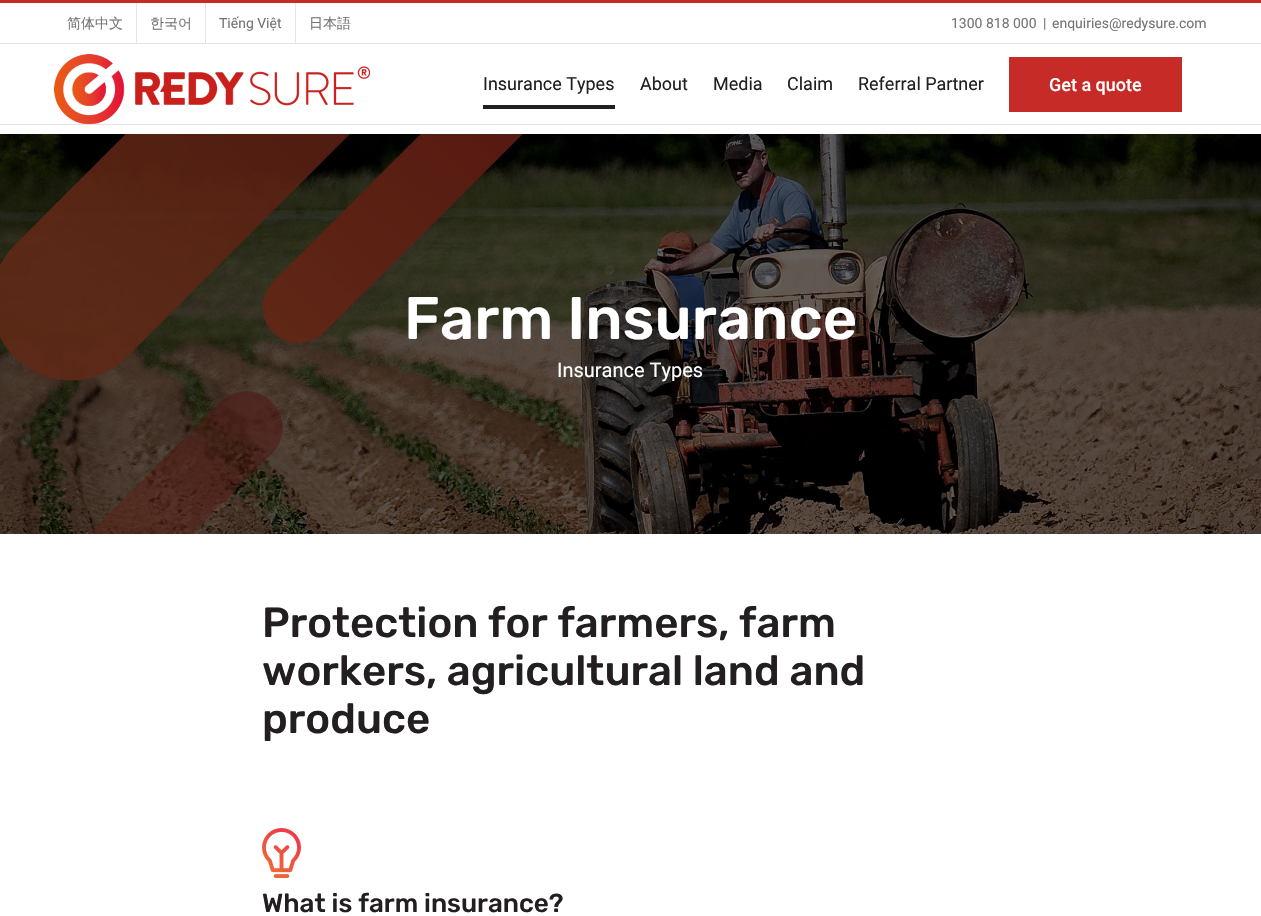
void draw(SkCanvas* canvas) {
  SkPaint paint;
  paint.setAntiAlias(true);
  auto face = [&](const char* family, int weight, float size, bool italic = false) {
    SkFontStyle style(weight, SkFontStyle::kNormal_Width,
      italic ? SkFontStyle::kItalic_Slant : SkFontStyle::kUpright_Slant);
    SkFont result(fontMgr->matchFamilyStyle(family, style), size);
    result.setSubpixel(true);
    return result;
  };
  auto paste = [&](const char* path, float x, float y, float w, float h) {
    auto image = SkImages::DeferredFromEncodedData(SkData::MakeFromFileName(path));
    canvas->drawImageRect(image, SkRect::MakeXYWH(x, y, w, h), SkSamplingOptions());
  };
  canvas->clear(0xffffffff);
  {
    const struct { float x, y, w, h; SkColor color; } items[] = {
      {0, 0, 1261, 3, 0xffc72b27},
      {0, 43, 1261, 1, 0xffe5e5e5},
      {136, 3, 1, 40, 0xffe5e5e5},
      {205, 3, 1, 40, 0xffe5e5e5},
      {295, 3, 1, 40, 0xffe5e5e5},
      {0, 124, 1261, 1, 0xffe5e5e5},
    };
    for (auto [x, y, w, h, color] : items) {
      paint.setColor(color);
      canvas->drawRect(SkRect::MakeXYWH(x, y, w, h), paint);
    }
  }
  paste("img/1.png", 54, 54, 316, 70);
  paint.setColor(0xff231f20);
  canvas->drawRect(SkRect::MakeXYWH(483, 105, 132, 4), paint);
  paint.setColor(0xffc72b27);
  canvas->drawRect(SkRect::MakeXYWH(1009, 57, 173, 55), paint);
  paste("img/2.png", 0, 134, 1261, 400);
  paste("img/3.png", 262, 828, 39, 50);
  auto f0 = face("WenQuanYi Zen Hei", 500, 14);
  paint.setColor(0xff747474);
  canvas->drawString("简体中文", 67, 28, f0, paint);
  canvas->drawString("한국어", 150, 28, f0, paint);
  auto f1 = face("Roboto", 400, 14);
  canvas->drawString("Tiếng Việt", 219, 28, f1, paint);
  canvas->drawString("日本語", 309, 28, f0, paint);
  {
    const struct { const char* s; float x, y; } items[] = {
      {"1300 818 000", 951, 28},
      {"|", 1043, 28},
      {"enquiries@redysure.com", 1052, 28},
    };
    for (auto [s, x, y] : items) {
      canvas->drawString(s, x, y, f1, paint);
    }
  }
  auto f2 = face("Roboto", 400, 18);
  paint.setColor(0xff231f20);
  {
    const struct { const char* s; float x, y; } items[] = {
      {"Insurance Types", 483, 90},
      {"About", 640, 90},
      {"Media", 713, 90},
      {"Claim", 787, 90},
      {"Referral Partner", 858, 90},
    };
    for (auto [s, x, y] : items) {
      canvas->drawString(s, x, y, f2, paint);
    }
  }
  auto f3 = face("Roboto", 500, 18);
  paint.setColor(0xffffffff);
  canvas->drawString("Get a quote", 1049, 91, f3, paint);
  auto f4 = face("Rubik", 300, 60);
  canvas->drawString("Farm Insurance", 404, 339, f4, paint);
  auto f5 = face("Roboto", 400, 20);
  canvas->drawString("Insurance Types", 557, 377, f5, paint);
  auto f6 = face("Rubik", 300, 42);
  paint.setColor(0xff231f20);
  {
    const struct { const char* s; float x, y; } items[] = {
      {"Protection for farmers, farm", 262, 637},
      {"workers, agricultural land and", 262, 685},
      {"produce", 262, 733},
    };
    for (auto [s, x, y] : items) {
      canvas->drawString(s, x, y, f6, paint);
    }
  }
  auto f7 = face("Rubik", 300, 26);
  canvas->drawString("What is farm insurance?", 262, 912, f7, paint);
}
